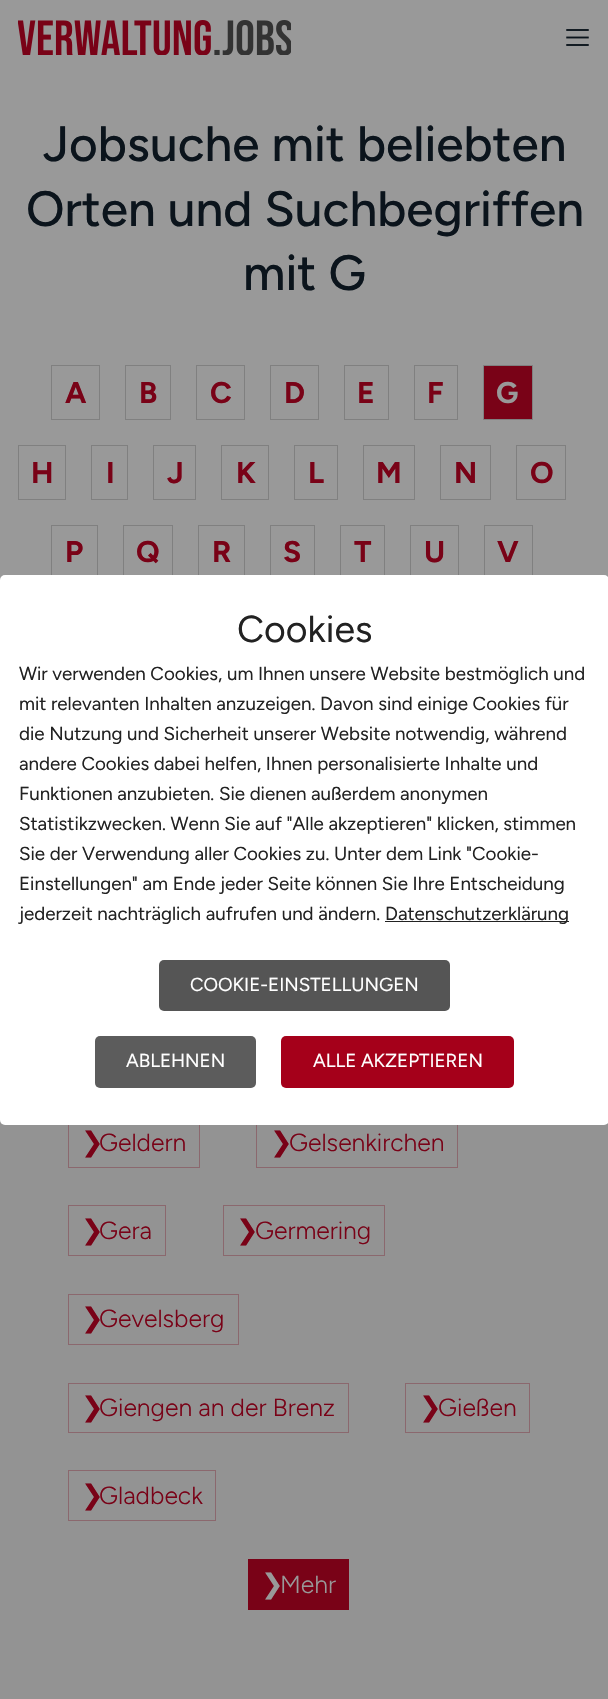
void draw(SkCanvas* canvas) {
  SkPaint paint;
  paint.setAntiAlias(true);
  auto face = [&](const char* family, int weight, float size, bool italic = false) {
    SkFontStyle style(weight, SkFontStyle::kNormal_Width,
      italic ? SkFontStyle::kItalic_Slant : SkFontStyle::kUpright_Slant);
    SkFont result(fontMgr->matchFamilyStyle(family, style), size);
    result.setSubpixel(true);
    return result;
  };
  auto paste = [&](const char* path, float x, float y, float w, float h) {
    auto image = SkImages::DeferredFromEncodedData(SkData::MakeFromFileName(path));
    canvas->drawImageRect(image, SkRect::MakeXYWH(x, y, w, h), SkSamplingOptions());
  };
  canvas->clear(0xff999999);
  paste("img/1.png", 18, 20, 273, 35);
  paste("img/2.png", 566, 29, 23, 17);
  paint.setStroke(true);
  paint.setStrokeWidth(1);
  paint.setColor(0xff808080);
  canvas->drawRect(SkRect::MakeXYWH(51.5f, 365.5f, 48, 54), paint);
  canvas->drawRect(SkRect::MakeXYWH(125.5f, 365.5f, 45, 54), paint);
  canvas->drawRect(SkRect::MakeXYWH(196.5f, 365.5f, 48, 54), paint);
  canvas->drawRect(SkRect::MakeXYWH(270.5f, 365.5f, 48, 54), paint);
  canvas->drawRect(SkRect::MakeXYWH(344.5f, 365.5f, 44, 54), paint);
  canvas->drawRect(SkRect::MakeXYWH(414.5f, 365.5f, 43, 54), paint);
  paint.setStroke(false);
  paint.setColor(0xff790217);
  canvas->drawRect(SkRect::MakeXYWH(483.5f, 365.5f, 49, 54), paint);
  paint.setStroke(true);
  paint.setColor(0xff808080);
  canvas->drawRect(SkRect::MakeXYWH(483.5f, 365.5f, 49, 54), paint);
  canvas->drawRect(SkRect::MakeXYWH(18.5f, 445.5f, 47, 54), paint);
  canvas->drawRect(SkRect::MakeXYWH(91.5f, 445.5f, 36, 54), paint);
  canvas->drawRect(SkRect::MakeXYWH(153.5f, 445.5f, 42, 54), paint);
  canvas->drawRect(SkRect::MakeXYWH(221.5f, 445.5f, 47, 54), paint);
  canvas->drawRect(SkRect::MakeXYWH(294.5f, 445.5f, 43, 54), paint);
  canvas->drawRect(SkRect::MakeXYWH(363.5f, 445.5f, 51, 54), paint);
  canvas->drawRect(SkRect::MakeXYWH(440.5f, 445.5f, 50, 54), paint);
  canvas->drawRect(SkRect::MakeXYWH(516.5f, 445.5f, 49, 54), paint);
  canvas->drawRect(SkRect::MakeXYWH(51.5f, 525.5f, 46, 54), paint);
  canvas->drawRect(SkRect::MakeXYWH(123.5f, 525.5f, 49, 54), paint);
  canvas->drawRect(SkRect::MakeXYWH(198.5f, 525.5f, 46, 54), paint);
  canvas->drawRect(SkRect::MakeXYWH(270.5f, 525.5f, 44, 54), paint);
  canvas->drawRect(SkRect::MakeXYWH(340.5f, 525.5f, 44, 54), paint);
  canvas->drawRect(SkRect::MakeXYWH(410.5f, 525.5f, 48, 54), paint);
  canvas->drawRect(SkRect::MakeXYWH(484.5f, 525.5f, 48, 54), paint);
  paint.setStroke(false);
  paint.setColor(0xff939393);
  canvas->drawRect(SkRect::MakeXYWH(0, 1120, 608, 579), paint);
  paint.setStroke(true);
  paint.setColor(0xff8b686e);
  canvas->drawRect(SkRect::MakeXYWH(68.5f, 1118.5f, 131, 49), paint);
  canvas->drawRect(SkRect::MakeXYWH(256.5f, 1118.5f, 201, 49), paint);
  canvas->drawRect(SkRect::MakeXYWH(68.5f, 1205.5f, 97, 50), paint);
  canvas->drawRect(SkRect::MakeXYWH(223.5f, 1205.5f, 161, 50), paint);
  canvas->drawRect(SkRect::MakeXYWH(68.5f, 1294.5f, 170, 50), paint);
  canvas->drawRect(SkRect::MakeXYWH(68.5f, 1383.5f, 280, 49), paint);
  canvas->drawRect(SkRect::MakeXYWH(405.5f, 1383.5f, 124, 49), paint);
  canvas->drawRect(SkRect::MakeXYWH(68.5f, 1470.5f, 147, 50), paint);
  paint.setStroke(false);
  paint.setColor(0xff790217);
  canvas->drawRect(SkRect::MakeXYWH(248, 1559, 101, 51), paint);
  paint.setColor(0xffffffff);
  canvas->drawRoundRect(SkRect::MakeXYWH(0, 575, 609, 550), 5, 5, paint);
  paint.setColor(0xff222222);
  canvas->drawRect(SkRect::MakeXYWH(385, 921, 184, 1), paint);
  paint.setColor(0xff555555);
  canvas->drawRoundRect(SkRect::MakeXYWH(159, 960, 291, 51), 5, 5, paint);
  paint.setColor(0xff5c5c5c);
  canvas->drawRoundRect(SkRect::MakeXYWH(95, 1036, 161, 52), 5, 5, paint);
  paint.setColor(0xffa5001a);
  canvas->drawRoundRect(SkRect::MakeXYWH(281, 1036, 233, 52), 5, 5, paint);
  auto f0 = face("Figtree", 500, 49.5f);
  paint.setColor(0xff0b141c);
  {
    const struct { const char* s; float x, y; } items[] = {
      {"Jobsuche mit beliebten", 43, 161},
      {"Orten und Suchbegriffen", 26, 226},
      {"mit G", 243, 290},
    };
    for (auto [s, x, y] : items) {
      canvas->drawString(s, x, y, f0, paint);
    }
  }
  auto f1 = face("Figtree", 700, 30);
  paint.setColor(0xff790217);
  {
    const struct { const char* s; float x, y; } items[] = {
      {"A", 65, 403},
      {"B", 139, 403},
      {"C", 210, 403},
      {"D", 284, 403},
      {"E", 357, 403},
      {"F", 427, 403},
    };
    for (auto [s, x, y] : items) {
      canvas->drawString(s, x, y, f1, paint);
    }
  }
  paint.setColor(0xff999999);
  canvas->drawString("G", 496, 403, f1, paint);
  paint.setColor(0xff790217);
  {
    const struct { const char* s; float x, y; } items[] = {
      {"H", 31, 483},
      {"I", 106, 483},
      {"J", 167, 483},
      {"K", 236, 483},
      {"L", 308, 483},
      {"M", 376, 483},
      {"N", 454, 483},
      {"O", 530, 483},
      {"P", 65, 562},
      {"Q", 136, 562},
      {"R", 212, 562},
      {"S", 283, 562},
      {"T", 354, 562},
      {"U", 424, 562},
      {"V", 497, 562},
    };
    for (auto [s, x, y] : items) {
      canvas->drawString(s, x, y, f1, paint);
    }
  }
  auto f2 = face("DejaVu Sans", 400, 27);
  canvas->drawString("❯", 81, 1151, f2, paint);
  auto f3 = face("Figtree", 300, 24.75f);
  canvas->drawString("Geldern", 99, 1151, f3, paint);
  canvas->drawString("❯", 270, 1151, f2, paint);
  canvas->drawString("Gelsenkirchen", 289, 1151, f3, paint);
  canvas->drawString("❯", 81, 1239, f2, paint);
  canvas->drawString("Gera", 99, 1239, f3, paint);
  canvas->drawString("❯", 236, 1239, f2, paint);
  canvas->drawString("Germering", 255, 1239, f3, paint);
  canvas->drawString("❯", 81, 1327, f2, paint);
  canvas->drawString("Gevelsberg", 99, 1327, f3, paint);
  canvas->drawString("❯", 81, 1416, f2, paint);
  canvas->drawString("Giengen an der Brenz", 99, 1416, f3, paint);
  canvas->drawString("❯", 419, 1416, f2, paint);
  canvas->drawString("Gießen", 438, 1416, f3, paint);
  canvas->drawString("❯", 81, 1504, f2, paint);
  canvas->drawString("Gladbeck", 99, 1504, f3, paint);
  paint.setColor(0xff999999);
  canvas->drawString("❯", 261, 1593, f2, paint);
  canvas->drawString("Mehr", 280, 1593, f3, paint);
  auto f4 = face("Figtree", 400, 37.5f);
  paint.setColor(0xff222222);
  canvas->drawString("Cookies", 237, 642, f4, paint);
  auto f5 = face("Figtree", 400, 18.75f);
  {
    const struct { const char* s; float x, y; } items[] = {
      {"Wir verwenden Cookies, um Ihnen unsere Website bestmöglich und", 19, 680},
      {"mit relevanten Inhalten anzuzeigen. Davon sind einige Cookies für", 19, 710},
      {"die Nutzung und Sicherheit unserer Website notwendig, während", 19, 740},
      {"andere Cookies dabei helfen, Ihnen personalisierte Inhalte und", 19, 770},
      {"Funktionen anzubieten. Sie dienen außerdem anonymen", 19, 800},
      {"Statistikzwecken. Wenn Sie auf \"Alle akzeptieren\" klicken, stimmen", 19, 830},
      {"Sie der Verwendung aller Cookies zu. Unter dem Link \"Cookie-", 19, 860},
      {"Einstellungen\" am Ende jeder Seite können Sie Ihre Entscheidung", 19, 890},
      {"jederzeit nachträglich aufrufen und ändern.", 19, 920},
      {"Datenschutzerklärung", 385, 920},
    };
    for (auto [s, x, y] : items) {
      canvas->drawString(s, x, y, f5, paint);
    }
  }
  paint.setColor(0xffffffff);
  {
    const struct { const char* s; float x, y; } items[] = {
      {"COOKIE-EINSTELLUNGEN", 190, 991},
      {"ABLEHNEN", 126, 1067},
      {"ALLE AKZEPTIEREN", 313, 1067},
    };
    for (auto [s, x, y] : items) {
      canvas->drawString(s, x, y, f5, paint);
    }
  }
}
